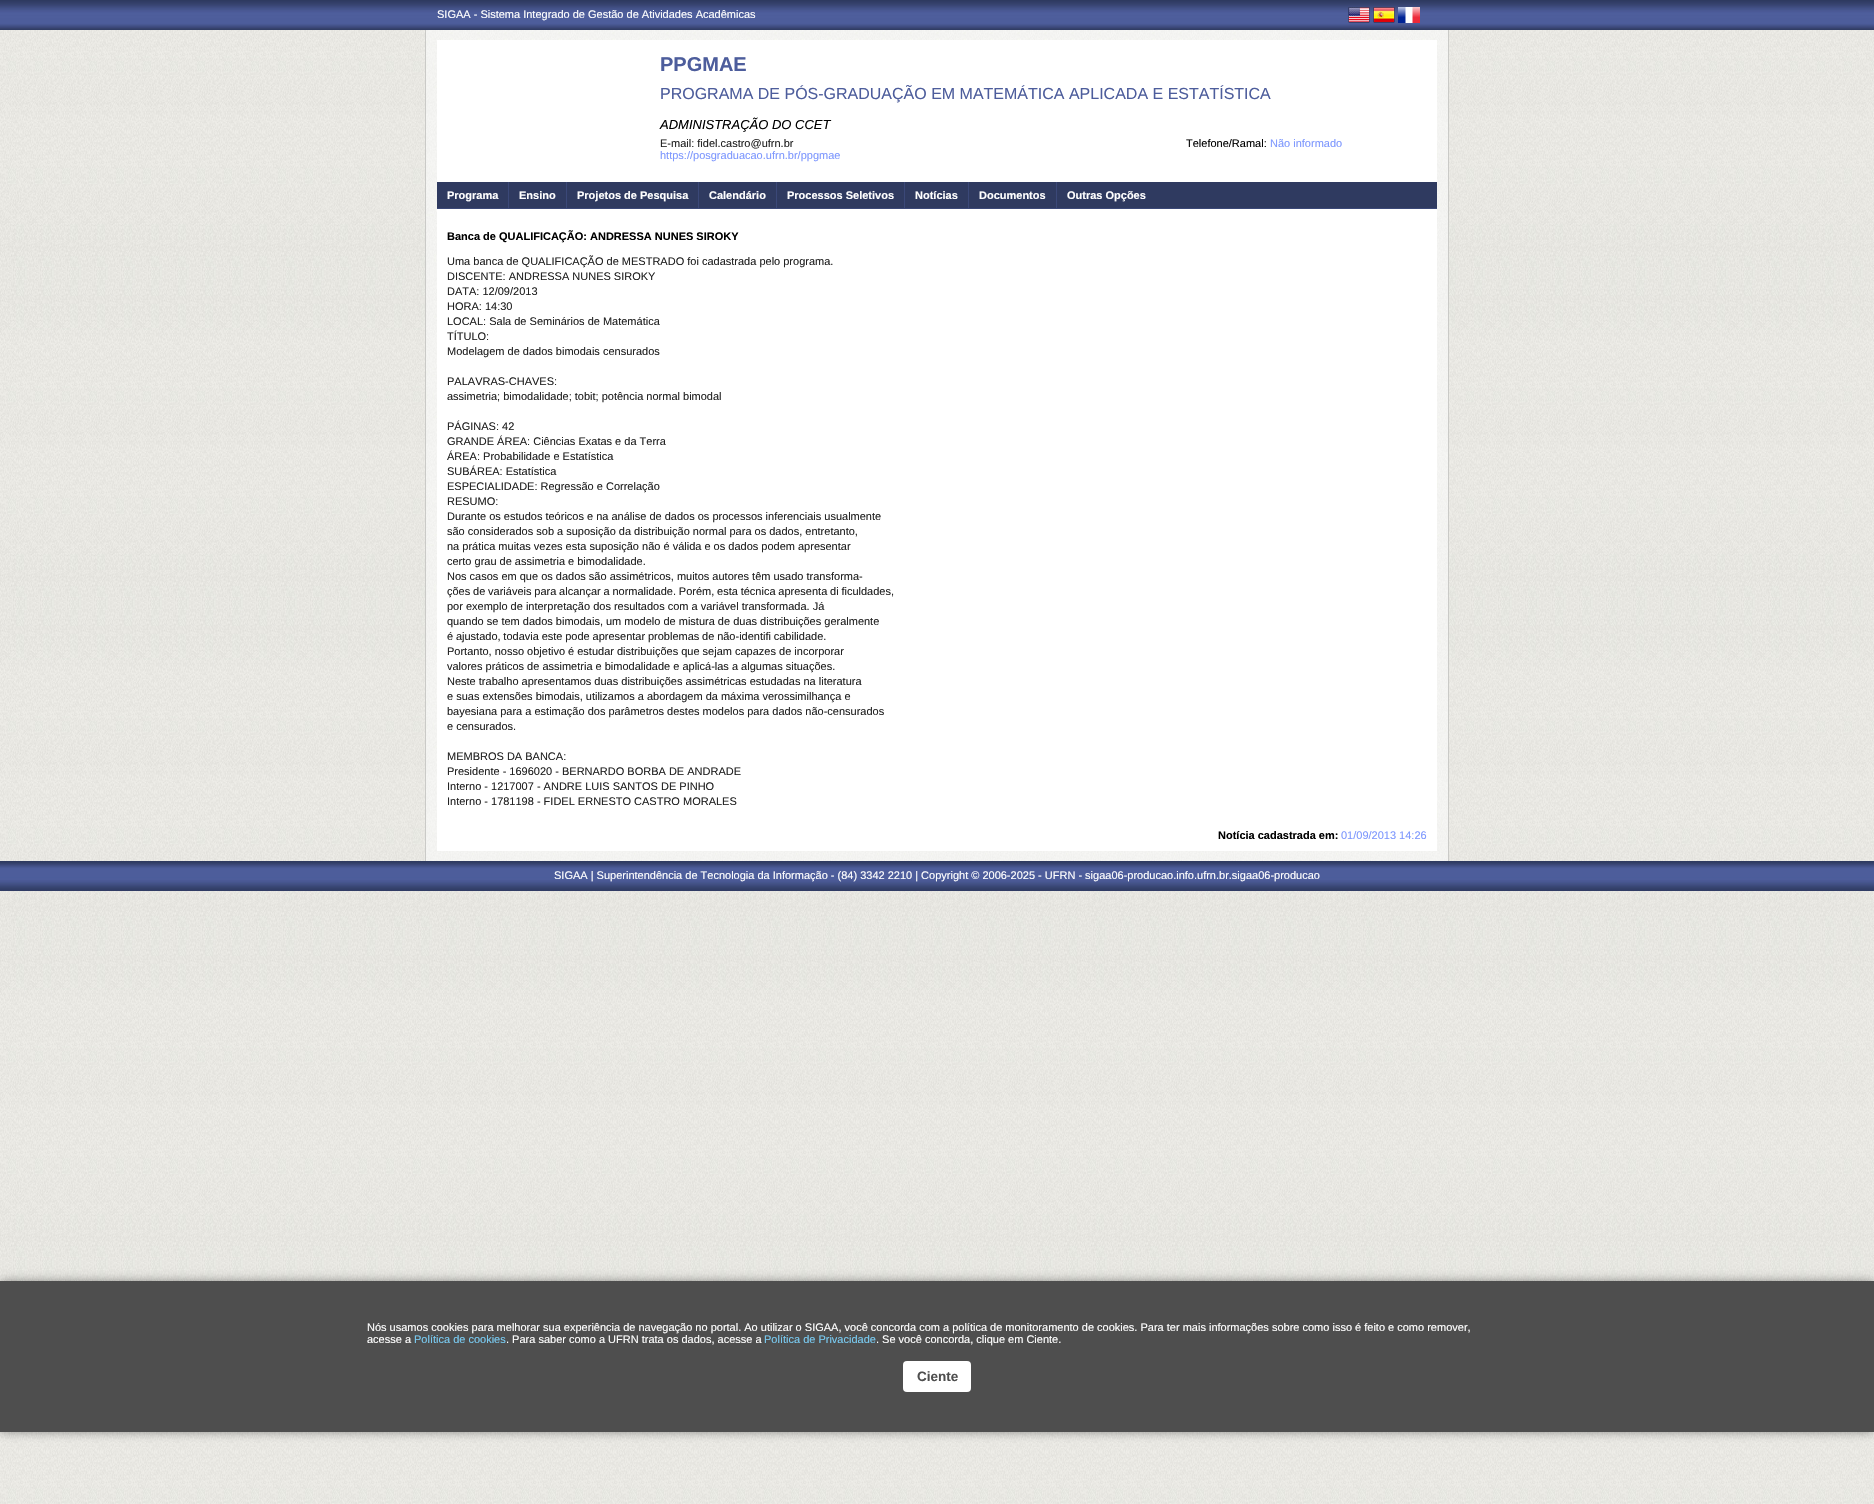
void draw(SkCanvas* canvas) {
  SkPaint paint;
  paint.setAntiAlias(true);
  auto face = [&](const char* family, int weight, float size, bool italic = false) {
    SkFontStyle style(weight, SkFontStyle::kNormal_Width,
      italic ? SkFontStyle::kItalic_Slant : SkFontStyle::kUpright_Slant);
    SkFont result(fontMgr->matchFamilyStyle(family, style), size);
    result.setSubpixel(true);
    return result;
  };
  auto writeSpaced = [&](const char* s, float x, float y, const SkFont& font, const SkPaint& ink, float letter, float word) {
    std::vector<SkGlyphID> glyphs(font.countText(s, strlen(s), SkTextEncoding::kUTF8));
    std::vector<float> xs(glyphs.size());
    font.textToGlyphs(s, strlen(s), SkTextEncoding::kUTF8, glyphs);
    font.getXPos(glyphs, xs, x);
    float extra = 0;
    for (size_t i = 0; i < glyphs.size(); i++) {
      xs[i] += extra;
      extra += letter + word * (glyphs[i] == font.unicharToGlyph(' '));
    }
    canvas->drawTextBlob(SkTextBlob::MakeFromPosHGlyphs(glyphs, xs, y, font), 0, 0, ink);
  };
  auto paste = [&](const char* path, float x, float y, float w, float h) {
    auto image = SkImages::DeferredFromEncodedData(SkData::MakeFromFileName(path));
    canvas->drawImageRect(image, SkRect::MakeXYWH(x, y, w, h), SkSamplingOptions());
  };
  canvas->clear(0xffffffff);
  paste("img/1.png", 0, 30, 1874, 1474);
  paste("img/2.png", 0, 0, 1874, 30);
  paste("img/3.png", 0, 861, 1874, 30);
  paste("img/4.png", 1348, 7, 22, 16);
  paste("img/5.png", 1373, 7, 22, 16);
  paste("img/6.png", 1398, 7, 22, 16);
  paste("img/7.png", 426, 30, 1022, 831);
  {
    const struct { float x, y, w, h; SkColor color; } items[] = {
      {1448, 30, 1, 831, 0xffcacac7},
      {425, 30, 1, 831, 0xffcacac7},
      {437, 40, 1000, 811, 0xffffffff},
      {437, 182, 1000, 26, 0xff2f3a60},
      {437, 208, 1000, 1, 0xff3b4878},
      {508, 182, 1, 27, 0xff3b4878},
      {566, 182, 1, 27, 0xff3b4878},
      {698, 182, 1, 27, 0xff3b4878},
      {776, 182, 1, 27, 0xff3b4878},
      {904, 182, 1, 27, 0xff3b4878},
      {968, 182, 1, 27, 0xff3b4878},
      {1056, 182, 1, 27, 0xff3b4878},
    };
    for (auto [x, y, w, h, color] : items) {
      paint.setColor(color);
      canvas->drawRect(SkRect::MakeXYWH(x, y, w, h), paint);
    }
  }
  paint.setColor(0x66000000);
  paint.setMaskFilter(SkMaskFilter::MakeBlur(kNormal_SkBlurStyle, 5));
  canvas->drawRect(SkRect::MakeXYWH(0, 1281, 1874, 151), paint);
  paint.setMaskFilter(nullptr);
  paint.setColor(0xff4e4e4e);
  canvas->drawRect(SkRect::MakeXYWH(0, 1281, 1874, 151), paint);
  paint.setColor(0xffffffff);
  canvas->drawRoundRect(SkRect::MakeXYWH(903, 1361, 68, 31), 4, 4, paint);
  auto f0 = face("Liberation Sans", 400, 11);
  canvas->drawString("SIGAA - Sistema Integrado de Gestão de Atividades Acadêmicas", 437, 18, f0, paint);
  auto f1 = face("Liberation Sans", 700, 20);
  paint.setColor(0xff4d5d9c);
  canvas->drawString("PPGMAE", 660, 71, f1, paint);
  auto f2 = face("Liberation Sans", 400, 16);
  canvas->drawString("PROGRAMA DE PÓS-GRADUAÇÃO EM MATEMÁTICA APLICADA E ESTATÍSTICA", 660, 99, f2, paint);
  auto f3 = face("Liberation Sans", 400, 13, true);
  paint.setColor(0xff000000);
  canvas->drawString("ADMINISTRAÇÃO DO CCET", 660, 129, f3, paint);
  paint.setColor(0xff222222);
  canvas->drawString("E-mail: fidel.castro@ufrn.br", 660, 147, f0, paint);
  paint.setColor(0xff000000);
  canvas->drawString("Telefone/Ramal:", 1186, 147, f0, paint);
  paint.setColor(0xff7d97fe);
  canvas->drawString("Não informado", 1270, 147, f0, paint);
  canvas->drawString("https://posgraduacao.ufrn.br/ppgmae", 660, 159, f0, paint);
  auto f4 = face("Liberation Sans", 700, 11);
  paint.setColor(0xffffffff);
  {
    const struct { const char* s; float x, y; } items[] = {
      {"Programa", 447, 199},
      {"Ensino", 519, 199},
      {"Projetos de Pesquisa", 577, 199},
      {"Calendário", 709, 199},
      {"Processos Seletivos", 787, 199},
      {"Notícias", 915, 199},
      {"Documentos", 979, 199},
      {"Outras Opções", 1067, 199},
    };
    for (auto [s, x, y] : items) {
      canvas->drawString(s, x, y, f4, paint);
    }
  }
  paint.setColor(0xff000000);
  canvas->drawString("Banca de QUALIFICAÇÃO: ANDRESSA NUNES SIROKY", 447, 240, f4, paint);
  paint.setColor(0xff222222);
  {
    const struct { const char* s; float x, y; } items[] = {
      {"Uma banca de QUALIFICAÇÃO de MESTRADO foi cadastrada pelo programa.", 447, 265},
      {"DISCENTE: ANDRESSA NUNES SIROKY", 447, 280},
      {"DATA: 12/09/2013", 447, 295},
      {"HORA: 14:30", 447, 310},
      {"LOCAL: Sala de Seminários de Matemática", 447, 325},
      {"TÍTULO:", 447, 340},
      {"Modelagem de dados bimodais censurados", 447, 355},
      {"PALAVRAS-CHAVES:", 447, 385},
      {"assimetria; bimodalidade; tobit; potência normal bimodal", 447, 400},
      {"PÁGINAS: 42", 447, 430},
      {"GRANDE ÁREA: Ciências Exatas e da Terra", 447, 445},
      {"ÁREA: Probabilidade e Estatística", 447, 460},
      {"SUBÁREA: Estatística", 447, 475},
      {"ESPECIALIDADE: Regressão e Correlação", 447, 490},
      {"RESUMO:", 447, 505},
      {"Durante os estudos teóricos e na análise de dados os processos inferenciais usualmente", 447, 520},
      {"são considerados sob a suposição da distribuição normal para os dados, entretanto,", 447, 535},
      {"na prática muitas vezes esta suposição não é válida e os dados podem apresentar", 447, 550},
      {"certo grau de assimetria e bimodalidade.", 447, 565},
      {"Nos casos em que os dados são assimétricos, muitos autores têm usado transforma-", 447, 580},
    };
    for (auto [s, x, y] : items) {
      canvas->drawString(s, x, y, f0, paint);
    }
  }
  writeSpaced("ções de variáveis para alcançar a normalidade. Porém, esta técnica apresenta di ficuldades,", 447, 595, f0, paint, 0, -0.25f);
  canvas->drawString("por exemplo de interpretação dos resultados com a variável transformada. Já", 447, 610, f0, paint);
  canvas->drawString("quando se tem dados bimodais, um modelo de mistura de duas distribuições geralmente", 447, 625, f0, paint);
  writeSpaced("é ajustado, todavia este pode apresentar problemas de não-identifi cabilidade.", 447, 640, f0, paint, 0, -0.25f);
  {
    const struct { const char* s; float x, y; } items[] = {
      {"Portanto, nosso objetivo é estudar distribuições que sejam capazes de incorporar", 447, 655},
      {"valores práticos de assimetria e bimodalidade e aplicá-las a algumas situações.", 447, 670},
      {"Neste trabalho apresentamos duas distribuições assimétricas estudadas na literatura", 447, 685},
      {"e suas extensões bimodais, utilizamos a abordagem da máxima verossimilhança e", 447, 700},
      {"bayesiana para a estimação dos parâmetros destes modelos para dados não-censurados", 447, 715},
      {"e censurados.", 447, 730},
      {"MEMBROS DA BANCA:", 447, 760},
      {"Presidente - 1696020 - BERNARDO BORBA DE ANDRADE", 447, 775},
      {"Interno - 1217007 - ANDRE LUIS SANTOS DE PINHO", 447, 790},
      {"Interno - 1781198 - FIDEL ERNESTO CASTRO MORALES", 447, 805},
    };
    for (auto [s, x, y] : items) {
      canvas->drawString(s, x, y, f0, paint);
    }
  }
  paint.setColor(0xff000000);
  canvas->drawString("Notícia cadastrada em:", 1218, 839, f4, paint);
  paint.setColor(0xff7d97fe);
  canvas->drawString("01/09/2013 14:26", 1341, 839, f0, paint);
  paint.setColor(0xffffffff);
  {
    const struct { const char* s; float x, y; } items[] = {
      {"SIGAA | Superintendência de Tecnologia da Informação - (84) 3342 2210 | Copyright © 2006-2025 - UFRN - sigaa06-producao.info.ufrn.br.sigaa06-producao", 554, 879},
      {"Nós usamos cookies para melhorar sua experiência de navegação no portal. Ao utilizar o SIGAA, você concorda com a política de monitoramento de cookies. Para ter mais informações sobre como isso é feito e como remover,", 367, 1331},
      {"acesse a", 367, 1343},
    };
    for (auto [s, x, y] : items) {
      canvas->drawString(s, x, y, f0, paint);
    }
  }
  paint.setColor(0xff79cbf2);
  canvas->drawString("Política de cookies", 414, 1343, f0, paint);
  paint.setColor(0xffffffff);
  canvas->drawString(". Para saber como a UFRN trata os dados, acesse a", 506, 1343, f0, paint);
  paint.setColor(0xff79cbf2);
  canvas->drawString("Política de Privacidade", 764, 1343, f0, paint);
  paint.setColor(0xffffffff);
  canvas->drawString(". Se você concorda, clique em Ciente.", 876, 1343, f0, paint);
  auto f5 = face("Liberation Sans", 700, 13.5f);
  paint.setColor(0xff4e4e4e);
  canvas->drawString("Ciente", 917, 1381, f5, paint);
}
